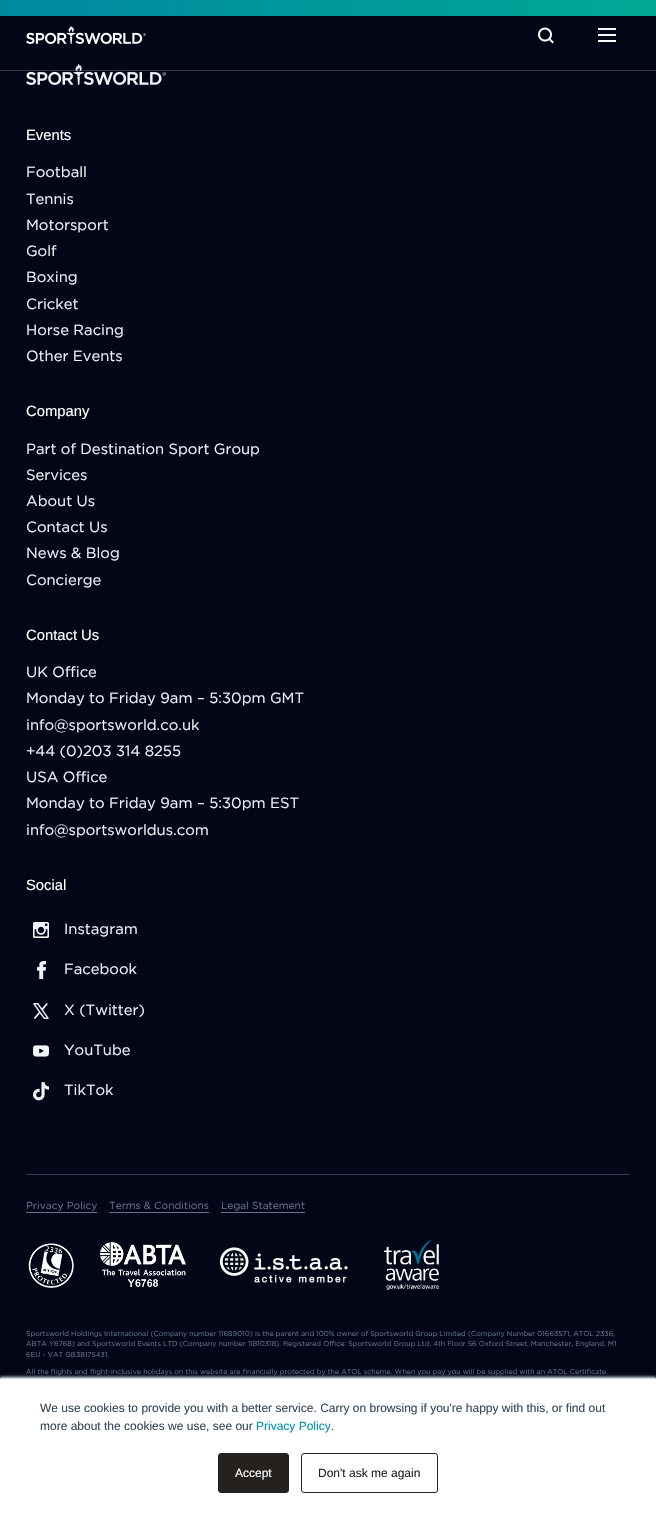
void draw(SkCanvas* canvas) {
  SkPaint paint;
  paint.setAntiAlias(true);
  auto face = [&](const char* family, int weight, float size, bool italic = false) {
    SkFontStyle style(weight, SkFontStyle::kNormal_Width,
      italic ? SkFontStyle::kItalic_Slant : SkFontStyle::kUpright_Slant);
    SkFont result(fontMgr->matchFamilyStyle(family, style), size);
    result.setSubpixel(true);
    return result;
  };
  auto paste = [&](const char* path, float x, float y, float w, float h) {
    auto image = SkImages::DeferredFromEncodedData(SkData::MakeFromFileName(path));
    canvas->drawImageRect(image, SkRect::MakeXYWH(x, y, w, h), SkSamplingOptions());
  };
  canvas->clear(0xff020617);
  paste("img/3.png", 26, 64, 140, 21);
  paint.setColor(0x33ffffff);
  canvas->drawRect(SkRect::MakeXYWH(0, 70, 656, 1), paint);
  paste("img/1.png", 26, 26, 120, 18);
  paste("img/2.png", 538, 27, 16, 17);
  {
    const struct { float x, y, w, h; SkColor color; } items[] = {
      {598, 34, 18, 2, 0xffffffff},
      {598, 28, 18, 2, 0xffffffff},
      {598, 40, 18, 2, 0xffffffff},
    };
    for (auto [x, y, w, h, color] : items) {
      paint.setColor(color);
      canvas->drawRect(SkRect::MakeXYWH(x, y, w, h), paint);
    }
  }
  {
    const SkColor colors[] = {0xff00a995, 0xff0088a1};
    const float stops[] = {0, 1};
    const SkPoint ends[] = {{656, 8}, {0, 8}};
    paint.setShader(SkGradientShader::MakeLinear(ends, colors, stops, 2, SkTileMode::kClamp));
    paint.setAlpha(255);
  }
  canvas->drawRect(SkRect::MakeXYWH(0, 0, 656, 16), paint);
  paste("img/4.png", 33, 922, 16, 16);
  paste("img/5.png", 37, 961, 9, 18);
  paste("img/6.png", 33, 1003, 16, 16);
  paste("img/7.png", 33, 1045, 16, 12);
  paste("img/8.png", 33, 1082, 16, 19);
  paint.setShader(nullptr);
  {
    const struct { float x, y, w, h; SkColor color; } items[] = {
      {26, 1174, 604, 1, 0xff334155},
      {26, 1212, 71, 1, 0xff64748b},
      {109, 1212, 100, 1, 0xff64748b},
      {221, 1212, 84, 1, 0xff64748b},
    };
    for (auto [x, y, w, h, color] : items) {
      paint.setColor(color);
      canvas->drawRect(SkRect::MakeXYWH(x, y, w, h), paint);
    }
  }
  paste("img/9.png", 28, 1243, 46, 45);
  paste("img/10.png", 100, 1242, 86, 45);
  paste("img/11.png", 219, 1247, 129, 36);
  paste("img/12.png", 384, 1240, 55, 50);
  paint.setColor(0xffeaf0f6);
  paint.setMaskFilter(SkMaskFilter::MakeBlur(kNormal_SkBlurStyle, 1.5f));
  canvas->drawRect(SkRect::MakeXYWH(0, 1377, 656, 141), paint);
  paint.setMaskFilter(nullptr);
  paint.setColor(0xffffffff);
  canvas->drawRect(SkRect::MakeXYWH(0, 1379, 656, 140), paint);
  paint.setColor(0xffcbd6e2);
  canvas->drawRect(SkRect::MakeXYWH(0, 1378, 656, 1), paint);
  paint.setColor(0xff25211e);
  canvas->drawRoundRect(SkRect::MakeXYWH(218.5f, 1453.5f, 70, 39), 2.5f, 2.5f, paint);
  paint.setStroke(true);
  paint.setStrokeWidth(1);
  canvas->drawRoundRect(SkRect::MakeXYWH(218.5f, 1453.5f, 70, 39), 2.5f, 2.5f, paint);
  canvas->drawRoundRect(SkRect::MakeXYWH(301.5f, 1453.5f, 136, 39), 2.5f, 2.5f, paint);
  auto f0 = face("Liberation Sans", 400, 14.8f);
  paint.setStroke(false);
  paint.setColor(0xffffffff);
  canvas->drawString("Events", 26, 140, f0, paint);
  auto f1 = face("Gotham", 400, 14.8f);
  paint.setColor(0xfff1f5f9);
  {
    const struct { const char* s; float x, y; } items[] = {
      {"Football", 26, 177},
      {"Tennis", 26, 204},
      {"Motorsport", 26, 230},
      {"Golf", 26, 256},
      {"Boxing", 26, 282},
      {"Cricket", 26, 309},
      {"Horse Racing", 26, 335},
      {"Other Events", 26, 361},
    };
    for (auto [s, x, y] : items) {
      canvas->drawString(s, x, y, f1, paint);
    }
  }
  paint.setColor(0xffffffff);
  canvas->drawString("Company", 26, 416, f0, paint);
  paint.setColor(0xfff1f5f9);
  {
    const struct { const char* s; float x, y; } items[] = {
      {"Part of Destination Sport Group", 26, 454},
      {"Services", 26, 480},
      {"About Us", 26, 506},
      {"Contact Us", 26, 532},
      {"News & Blog", 26, 558},
      {"Concierge", 26, 585},
    };
    for (auto [s, x, y] : items) {
      canvas->drawString(s, x, y, f1, paint);
    }
  }
  paint.setColor(0xffffffff);
  canvas->drawString("Contact Us", 26, 640, f0, paint);
  paint.setColor(0xfff1f5f9);
  {
    const struct { const char* s; float x, y; } items[] = {
      {"UK Office", 26, 677},
      {"Monday to Friday 9am – 5:30pm GMT", 26, 703},
      {"info@sportsworld.co.uk", 26, 730},
      {"+44 (0)203 314 8255", 26, 756},
      {"USA Office", 26, 782},
      {"Monday to Friday 9am – 5:30pm EST", 26, 808},
      {"info@sportsworldus.com", 26, 835},
    };
    for (auto [s, x, y] : items) {
      canvas->drawString(s, x, y, f1, paint);
    }
  }
  paint.setColor(0xffffffff);
  canvas->drawString("Social", 26, 890, f0, paint);
  paint.setColor(0xfff1f5f9);
  {
    const struct { const char* s; float x, y; } items[] = {
      {"Instagram", 64, 934},
      {"Facebook", 64, 974},
      {"X (Twitter)", 64, 1015},
      {"YouTube", 64, 1055},
      {"TikTok", 64, 1095},
    };
    for (auto [s, x, y] : items) {
      canvas->drawString(s, x, y, f1, paint);
    }
  }
  auto f2 = face("Gotham", 400, 10.25f);
  paint.setColor(0xff64748b);
  {
    const struct { const char* s; float x, y; } items[] = {
      {"Privacy Policy", 26, 1209},
      {"Terms & Conditions", 109, 1209},
      {"Legal Statement", 221, 1209},
    };
    for (auto [s, x, y] : items) {
      canvas->drawString(s, x, y, f2, paint);
    }
  }
  auto f3 = face("Gotham", 400, 7.05f);
  {
    const struct { const char* s; float x, y; } items[] = {
      {"Sportsworld Holdings International (Company number 11689010) is the parent and 100% owner of Sportsworld Group Limited (Company Number 01663571, ATOL 2336,", 26, 1336},
      {"ABTA Y6768) and Sportsworld Events LTD (Company number 11810318). Registered Office: Sportsworld Group Ltd, 4th Floor 56 Oxford Street, Manchester, England, M1", 26, 1346},
      {"6EU - VAT GB38175431.", 26, 1357},
      {"All the flights and flight-inclusive holidays on this website are financially protected by the ATOL scheme. When you pay you will be supplied with an ATOL Certificate.", 26, 1374},
    };
    for (auto [s, x, y] : items) {
      canvas->drawString(s, x, y, f3, paint);
    }
  }
  auto f4 = face("Liberation Sans", 400, 12);
  paint.setColor(0xff33475b);
  canvas->drawString("We use cookies to provide you with a better service. Carry on browsing if you're happy with this, or find out", 40, 1412, f4, paint);
  canvas->drawString("more about the cookies we use, see our", 40, 1430, f4, paint);
  paint.setColor(0xff0091ae);
  canvas->drawString("Privacy Policy", 256, 1430, f4, paint);
  paint.setColor(0xff33475b);
  canvas->drawString(".", 331, 1430, f4, paint);
  paint.setColor(0xffffffff);
  canvas->drawString("Accept", 235, 1477, f4, paint);
  paint.setColor(0xff25211e);
  canvas->drawString("Don't ask me again", 318, 1477, f4, paint);
}
